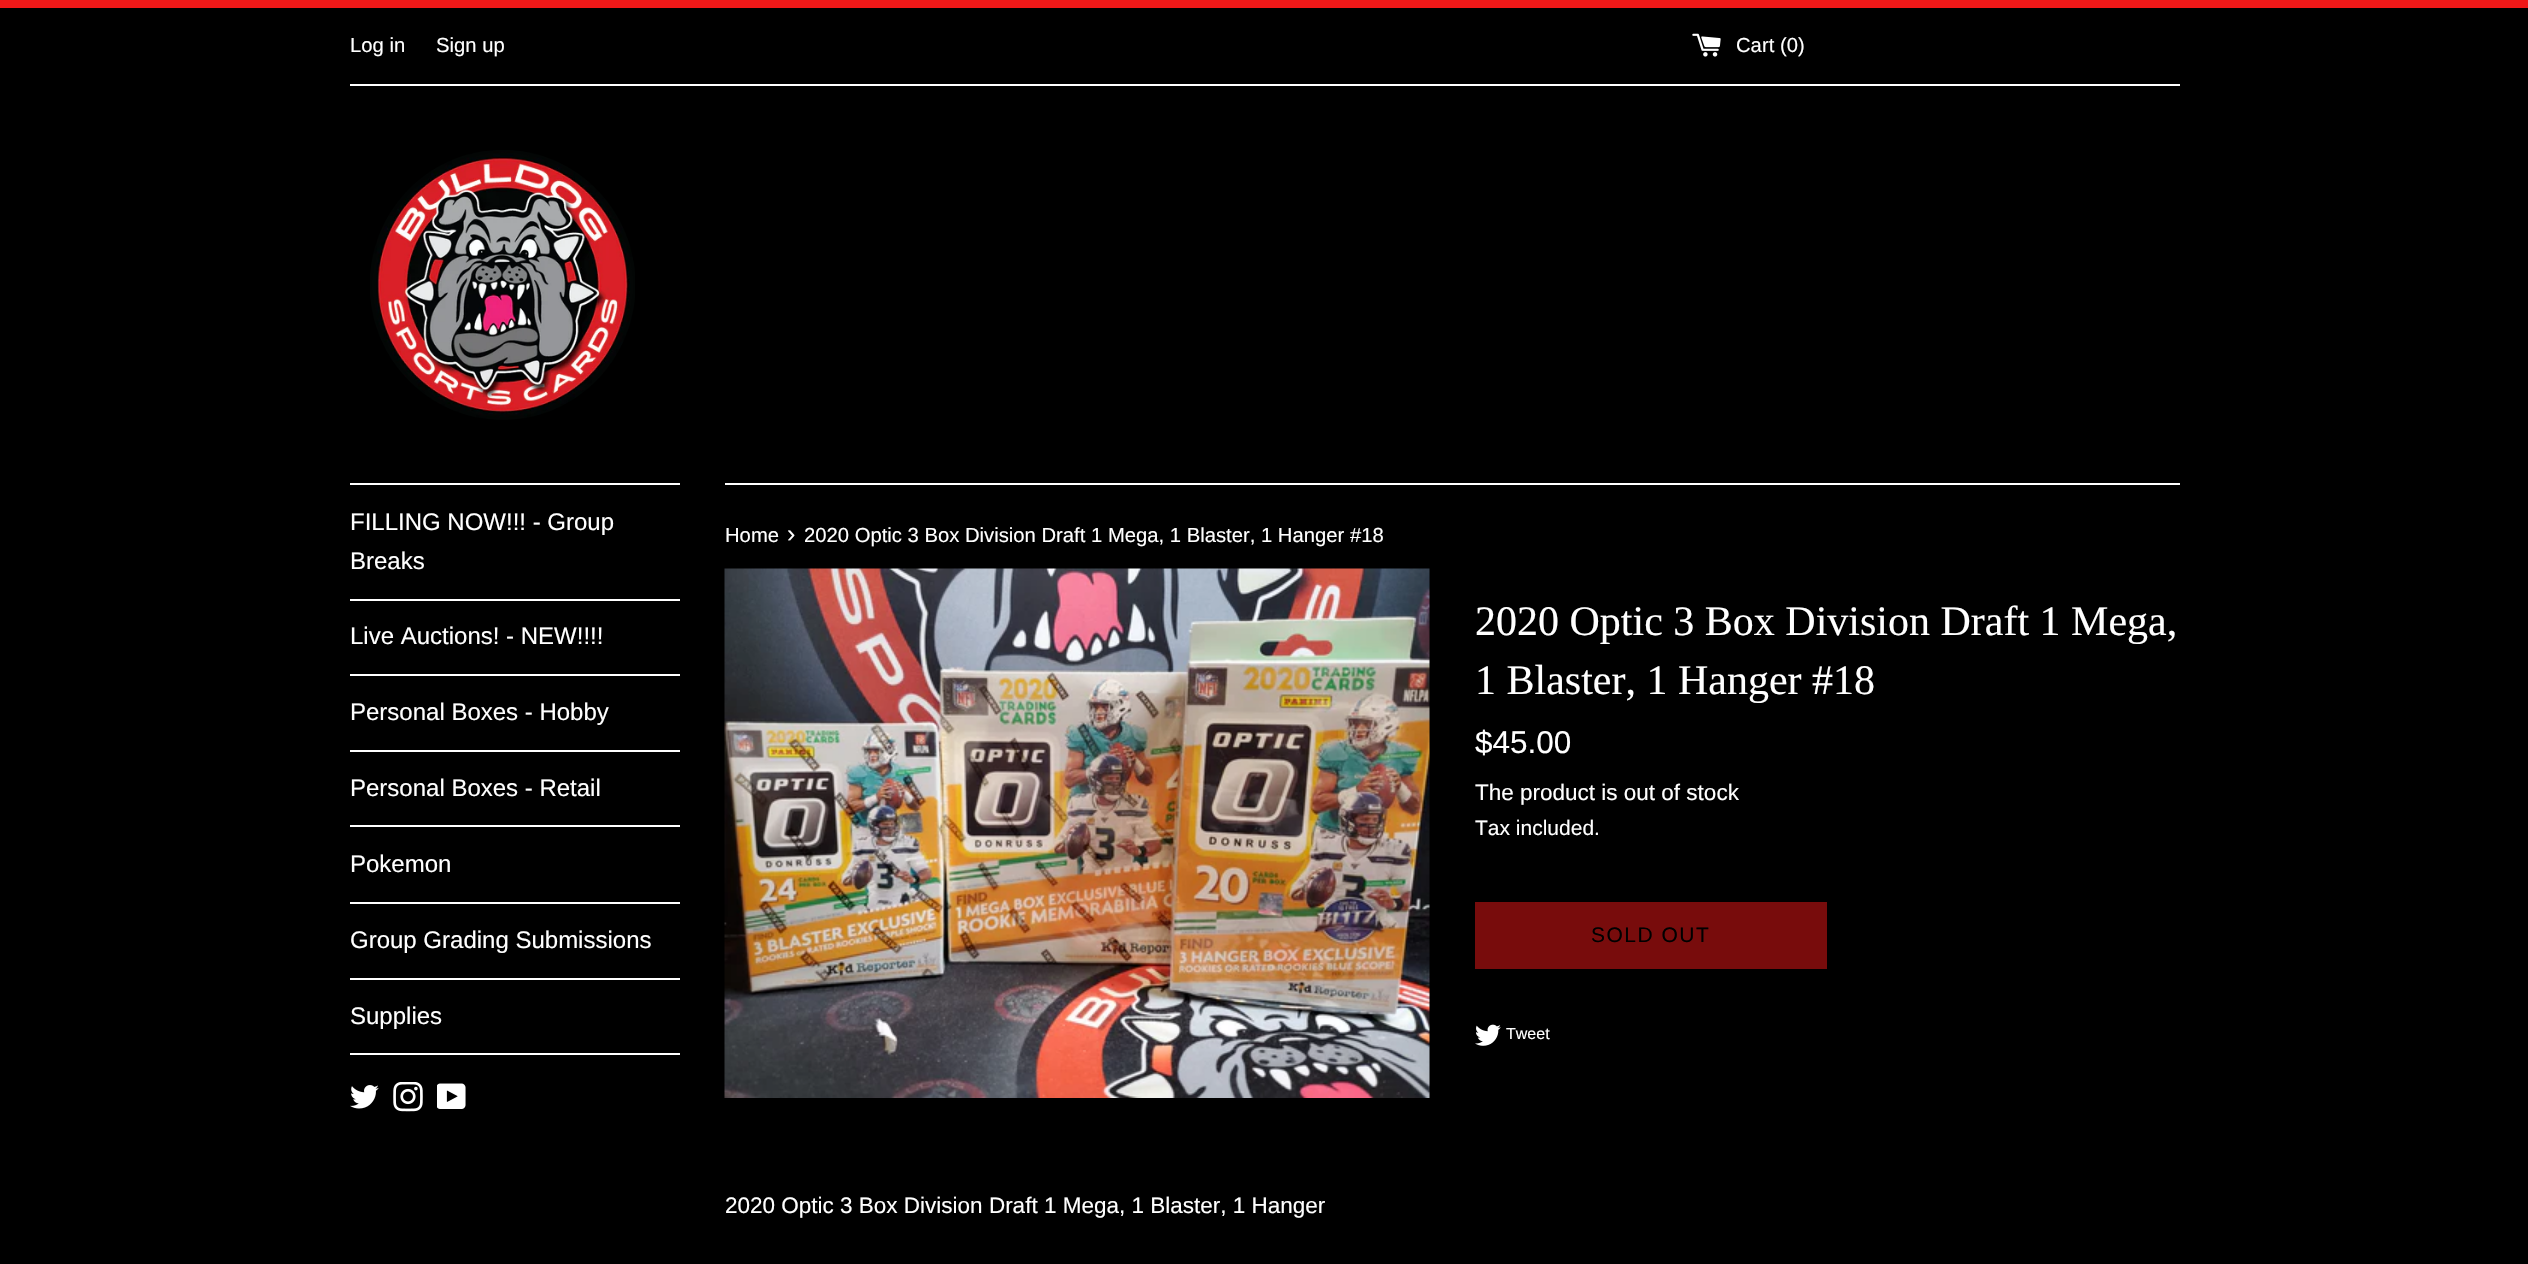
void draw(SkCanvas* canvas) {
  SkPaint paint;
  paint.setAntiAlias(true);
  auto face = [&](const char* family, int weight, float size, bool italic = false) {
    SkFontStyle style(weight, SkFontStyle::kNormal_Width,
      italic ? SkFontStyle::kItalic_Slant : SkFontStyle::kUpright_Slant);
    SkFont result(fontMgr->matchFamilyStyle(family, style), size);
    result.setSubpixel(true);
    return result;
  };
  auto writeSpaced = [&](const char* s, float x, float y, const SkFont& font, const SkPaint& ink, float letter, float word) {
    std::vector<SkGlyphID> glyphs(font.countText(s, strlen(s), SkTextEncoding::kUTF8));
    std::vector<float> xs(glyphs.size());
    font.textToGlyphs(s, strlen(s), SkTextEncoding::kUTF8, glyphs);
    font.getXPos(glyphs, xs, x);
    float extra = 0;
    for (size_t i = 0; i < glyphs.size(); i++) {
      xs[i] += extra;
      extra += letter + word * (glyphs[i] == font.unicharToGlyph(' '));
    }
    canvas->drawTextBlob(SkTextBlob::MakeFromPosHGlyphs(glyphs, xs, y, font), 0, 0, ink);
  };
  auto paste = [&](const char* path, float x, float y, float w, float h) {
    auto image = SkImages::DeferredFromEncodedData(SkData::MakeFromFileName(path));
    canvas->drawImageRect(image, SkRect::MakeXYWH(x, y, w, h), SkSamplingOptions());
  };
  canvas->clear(0xff000000);
  paint.setColor(0xfff01818);
  canvas->drawRect(SkRect::MakeXYWH(0, 0, 2528, 8), paint);
  paste("img/1.png", 1692, 33, 29, 24);
  paint.setColor(0xffffffff);
  canvas->drawRect(SkRect::MakeXYWH(350, 84, 1830, 2), paint);
  paste("img/2.png", 370, 150, 265, 270);
  {
    const struct { float x, y, w, h; SkColor color; } items[] = {
      {350, 483, 330, 2, 0xffffffff},
      {350, 599, 330, 2, 0xffffffff},
      {350, 674, 330, 2, 0xffffffff},
      {350, 750, 330, 2, 0xffffffff},
      {350, 825, 330, 2, 0xffffffff},
      {350, 902, 330, 2, 0xffffffff},
      {350, 978, 330, 2, 0xffffffff},
      {350, 1053, 330, 2, 0xffffffff},
    };
    for (auto [x, y, w, h, color] : items) {
      paint.setColor(color);
      canvas->drawRect(SkRect::MakeXYWH(x, y, w, h), paint);
    }
  }
  paste("img/3.png", 350, 1085, 29, 24);
  paste("img/4.png", 393, 1082, 30, 30);
  paste("img/5.png", 437, 1083, 29, 26);
  canvas->drawRect(SkRect::MakeXYWH(725, 483, 1455, 2), paint);
  paste("img/6.png", 724, 568, 706, 530);
  paint.setColor(0xff780c0c);
  canvas->drawRect(SkRect::MakeXYWH(1475, 902, 352, 67), paint);
  paste("img/7.png", 1475, 1024, 26, 22);
  auto f0 = face("Liberation Sans", 400, 20.25f);
  paint.setColor(0xffffffff);
  {
    const struct { const char* s; float x, y; } items[] = {
      {"Log in", 350, 52},
      {"Sign up", 436, 52},
      {"Cart (0)", 1736, 52},
    };
    for (auto [s, x, y] : items) {
      canvas->drawString(s, x, y, f0, paint);
    }
  }
  auto f1 = face("Liberation Sans", 400, 24);
  {
    const struct { const char* s; float x, y; } items[] = {
      {"FILLING NOW!!! - Group", 350, 530},
      {"Breaks", 350, 569},
      {"Live Auctions! - NEW!!!!", 350, 644},
      {"Personal Boxes - Hobby", 350, 720},
      {"Personal Boxes - Retail", 350, 796},
      {"Pokemon", 350, 872},
      {"Group Grading Submissions", 350, 948},
      {"Supplies", 350, 1024},
    };
    for (auto [s, x, y] : items) {
      canvas->drawString(s, x, y, f1, paint);
    }
  }
  canvas->drawString("Home", 725, 542, f0, paint);
  auto f2 = face("Liberation Sans", 400, 25);
  canvas->drawString("›", 787, 542, f2, paint);
  canvas->drawString("2020 Optic 3 Box Division Draft 1 Mega, 1 Blaster, 1 Hanger #18", 804, 542, f0, paint);
  auto f3 = face("Liberation Serif", 400, 42);
  canvas->drawString("2020 Optic 3 Box Division Draft 1 Mega,", 1475, 635, f3, paint);
  canvas->drawString("1 Blaster, 1 Hanger #18", 1475, 694, f3, paint);
  auto f4 = face("Liberation Sans", 400, 31.5f);
  canvas->drawString("$45.00", 1475, 753, f4, paint);
  auto f5 = face("Liberation Sans", 400, 22.5f);
  canvas->drawString("The product is out of stock", 1475, 800, f5, paint);
  auto f6 = face("Liberation Sans", 400, 21);
  canvas->drawString("Tax included.", 1475, 835, f6, paint);
  paint.setColor(0xff000000);
  writeSpaced("SOLD OUT", 1591, 942, f6, paint, 1.5f, 0);
  auto f7 = face("Liberation Sans", 400, 16);
  paint.setColor(0xffffffff);
  canvas->drawString("Tweet", 1506, 1039, f7, paint);
  canvas->drawString("2020 Optic 3 Box Division Draft 1 Mega, 1 Blaster, 1 Hanger", 725, 1213, f5, paint);
}
